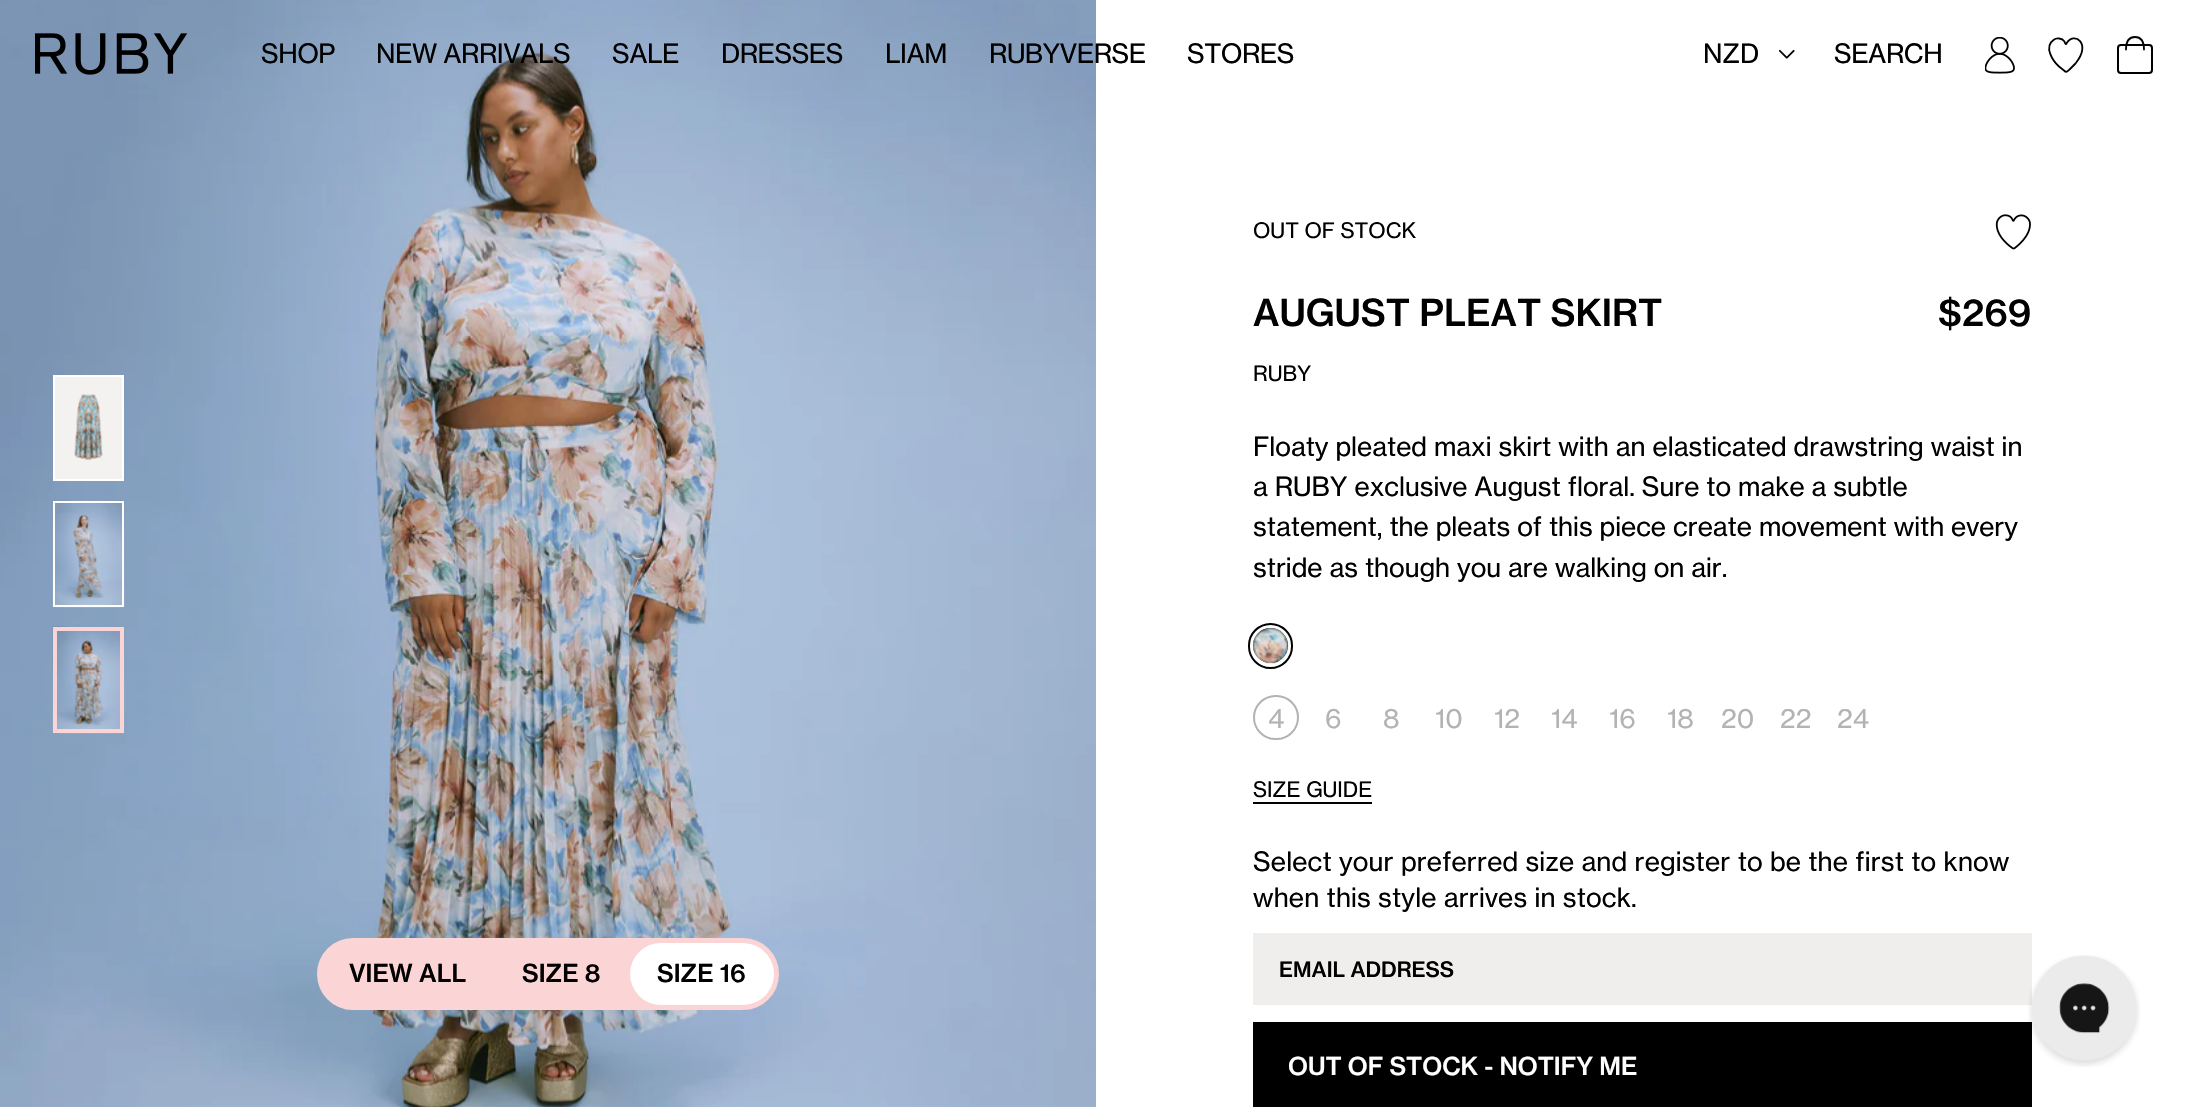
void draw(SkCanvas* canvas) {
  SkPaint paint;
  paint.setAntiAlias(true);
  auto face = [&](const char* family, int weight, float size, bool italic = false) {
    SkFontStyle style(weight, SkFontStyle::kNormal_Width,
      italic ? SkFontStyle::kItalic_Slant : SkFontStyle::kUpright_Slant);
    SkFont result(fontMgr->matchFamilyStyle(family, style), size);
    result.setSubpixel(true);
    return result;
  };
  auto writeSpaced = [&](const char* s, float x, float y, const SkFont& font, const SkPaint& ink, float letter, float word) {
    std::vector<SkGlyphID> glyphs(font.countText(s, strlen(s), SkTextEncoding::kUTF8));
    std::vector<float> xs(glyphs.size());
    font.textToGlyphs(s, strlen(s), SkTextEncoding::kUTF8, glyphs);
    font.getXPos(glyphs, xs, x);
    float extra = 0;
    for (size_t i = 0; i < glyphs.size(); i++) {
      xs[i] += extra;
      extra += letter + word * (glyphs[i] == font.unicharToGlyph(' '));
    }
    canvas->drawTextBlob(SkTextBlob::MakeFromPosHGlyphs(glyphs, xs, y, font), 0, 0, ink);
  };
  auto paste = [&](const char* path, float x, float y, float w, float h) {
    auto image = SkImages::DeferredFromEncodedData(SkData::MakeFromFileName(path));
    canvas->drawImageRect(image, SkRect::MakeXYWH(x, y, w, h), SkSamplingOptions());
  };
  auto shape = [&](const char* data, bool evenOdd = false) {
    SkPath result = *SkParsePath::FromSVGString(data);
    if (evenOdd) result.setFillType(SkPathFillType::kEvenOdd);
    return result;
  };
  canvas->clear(0xffffffff);
  paste("img/4.png", 0, 0, 1096, 1107);
  paste("img/1.png", 35, 33, 153, 42);
  paste("img/2.png", 1778, 49, 17, 10);
  paste("img/3.png", 1985, 37, 30, 37);
  paint.setStroke(true);
  paint.setStrokeWidth(1.8f);
  paint.setStrokeCap(SkPaint::kRound_Cap);
  paint.setStrokeJoin(SkPaint::kRound_Join);
  paint.setColor(0xff000000);
  canvas->drawPath(shape("M2066.5 43.5C2073.5 31 2092.5 43 2075.5 63.5L2070 69C2067.5 71.5 2066.5 73 2064 70.5L2059 66.5C2053 61 2043.5 47 2053.5 40C2056.5 37.5 2062 38 2064.5 41.5C2064.5 42 2065.5 44.5 2066 44Z"), paint);
  canvas->drawPath(shape("M2126 49.5C2126 44.5 2127 37 2135 37C2143 37 2144 44.5 2144 49.5"), paint);
  paint.setStrokeWidth(2);
  paint.setStrokeCap(SkPaint::kButt_Cap);
  paint.setStrokeJoin(SkPaint::kMiter_Join);
  canvas->drawRoundRect(SkRect::MakeXYWH(2118, 45, 34, 28), 3, 3, paint);
  paint.setStroke(false);
  paint.setColor(0xfff4f2f1);
  canvas->drawRect(SkRect::MakeXYWH(55, 377, 67, 102), paint);
  paste("img/5.png", 74, 394, 29, 67);
  paint.setStroke(true);
  paint.setColor(0xffffffff);
  canvas->drawRect(SkRect::MakeXYWH(54, 376, 69, 104), paint);
  paste("img/6.png", 52, 500, 73, 108);
  canvas->drawRect(SkRect::MakeXYWH(54, 502, 69, 104), paint);
  paste("img/7.png", 52, 626, 73, 108);
  paint.setStrokeWidth(4);
  paint.setColor(0xfffbd4d5);
  canvas->drawRect(SkRect::MakeXYWH(55, 629, 67, 102), paint);
  paint.setStroke(false);
  canvas->drawRoundRect(SkRect::MakeXYWH(319.5f, 940.5f, 457, 67), 33.5f, 33.5f, paint);
  paint.setStroke(true);
  paint.setStrokeWidth(5);
  canvas->drawRoundRect(SkRect::MakeXYWH(319.5f, 940.5f, 457, 67), 33.5f, 33.5f, paint);
  canvas->save();
  canvas->clipPath(shape("M353 943H743C760 943 774 957 774 974C774 991 760 1005 743 1005H353C336 1005 322 991 322 974C322 957 336 943 353 943Z"), true);
  paint.setStroke(false);
  paint.setColor(0xffffffff);
  canvas->drawRoundRect(SkRect::MakeXYWH(630, 943, 145, 62), 31, 31, paint);
  canvas->restore();
  paste("img/8.png", 1995, 214, 36, 36);
  paint.setStroke(true);
  paint.setStrokeWidth(2);
  paint.setColor(0xff000000);
  canvas->drawRoundRect(SkRect::MakeXYWH(1249, 624, 43, 44), 21.5f, 21.5f, paint);
  paint.setStroke(false);
  canvas->drawCircle(1270.5f, 645.5f, 17.5f, paint);
  paste("img/9.png", 1253, 628, 36, 36);
  paint.setStroke(true);
  paint.setColor(0x26000000);
  canvas->drawCircle(1270.5f, 645.5f, 16.5f, paint);
  paint.setColor(0xffb3b3b3);
  canvas->drawRoundRect(SkRect::MakeXYWH(1254, 696, 44, 43), 21.5f, 21.5f, paint);
  paint.setStroke(false);
  {
    const struct { float x, y, w, h; SkColor color; } items[] = {
      {1253, 802, 119, 2, 0xff000000},
      {1253, 933, 779, 72, 0xfff0eeed},
      {1253, 1022, 779, 85, 0xff000000},
    };
    for (auto [x, y, w, h, color] : items) {
      paint.setColor(color);
      canvas->drawRect(SkRect::MakeXYWH(x, y, w, h), paint);
    }
  }
  paste("img/10.png", 2028, 955, 112, 112);
  auto f0 = face("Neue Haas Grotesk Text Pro", 400, 26.25f);
  {
    const struct { const char* s; float x, y; } items[] = {
      {"SHOP", 261, 63},
      {"NEW ARRIVALS", 376, 63},
      {"SALE", 612, 63},
      {"DRESSES", 721, 63},
      {"LIAM", 885, 63},
      {"RUBYVERSE", 989, 63},
      {"STORES", 1187, 63},
    };
    for (auto [s, x, y] : items) {
      writeSpaced(s, x, y, f0, paint, -0.5f, 0);
    }
  }
  canvas->drawString("NZD", 1703, 63, f0, paint);
  writeSpaced("SEARCH", 1834, 63, f0, paint, -0.5f, 0);
  auto f1 = face("Neue Haas Grotesk Text Pro", 500, 24.5f);
  {
    const struct { const char* s; float x, y; } items[] = {
      {"VIEW ALL", 349, 982},
      {"SIZE 8", 522, 982},
      {"SIZE 16", 657, 982},
    };
    for (auto [s, x, y] : items) {
      canvas->drawString(s, x, y, f1, paint);
    }
  }
  auto f2 = face("Neue Haas Grotesk Text Pro", 400, 21);
  canvas->drawString("OUT OF STOCK", 1253, 238, f2, paint);
  auto f3 = face("Neue Haas Grotesk Text Pro", 500, 36.75f);
  canvas->drawString("AUGUST PLEAT SKIRT", 1253, 326, f3, paint);
  canvas->drawString("$269", 1938, 326, f3, paint);
  canvas->drawString("RUBY", 1253, 381, f2, paint);
  {
    const struct { const char* s; float x, y; } items[] = {
      {"Floaty pleated maxi skirt with an elasticated drawstring waist in", 1253, 456},
      {"a RUBY exclusive August floral. Sure to make a subtle", 1253, 496},
      {"statement, the pleats of this piece create movement with every", 1253, 536},
      {"stride as though you are walking on air.", 1253, 577},
    };
    for (auto [s, x, y] : items) {
      canvas->drawString(s, x, y, f0, paint);
    }
  }
  paint.setColor(0xffb3b3b3);
  {
    const struct { const char* s; float x, y; } items[] = {
      {"4", 1268, 728},
      {"6", 1325, 728},
      {"8", 1383, 728},
      {"10", 1435, 728},
      {"12", 1494, 728},
      {"14", 1551, 728},
      {"16", 1609, 728},
      {"18", 1667, 728},
      {"20", 1721, 728},
      {"22", 1780, 728},
      {"24", 1837, 728},
    };
    for (auto [s, x, y] : items) {
      canvas->drawString(s, x, y, f0, paint);
    }
  }
  paint.setColor(0xff000000);
  canvas->drawString("SIZE GUIDE", 1253, 797, f2, paint);
  writeSpaced("Select your preferred size and register to be the first to know", 1253, 871, f0, paint, 0.18f, 0);
  writeSpaced("when this style arrives in stock.", 1253, 907, f0, paint, 0.18f, 0);
  auto f4 = face("Neue Haas Grotesk Text Pro", 500, 21);
  canvas->drawString("EMAIL ADDRESS", 1279, 977, f4, paint);
  paint.setColor(0xffffffff);
  canvas->drawString("OUT OF STOCK - NOTIFY ME", 1288, 1075, f1, paint);
}
